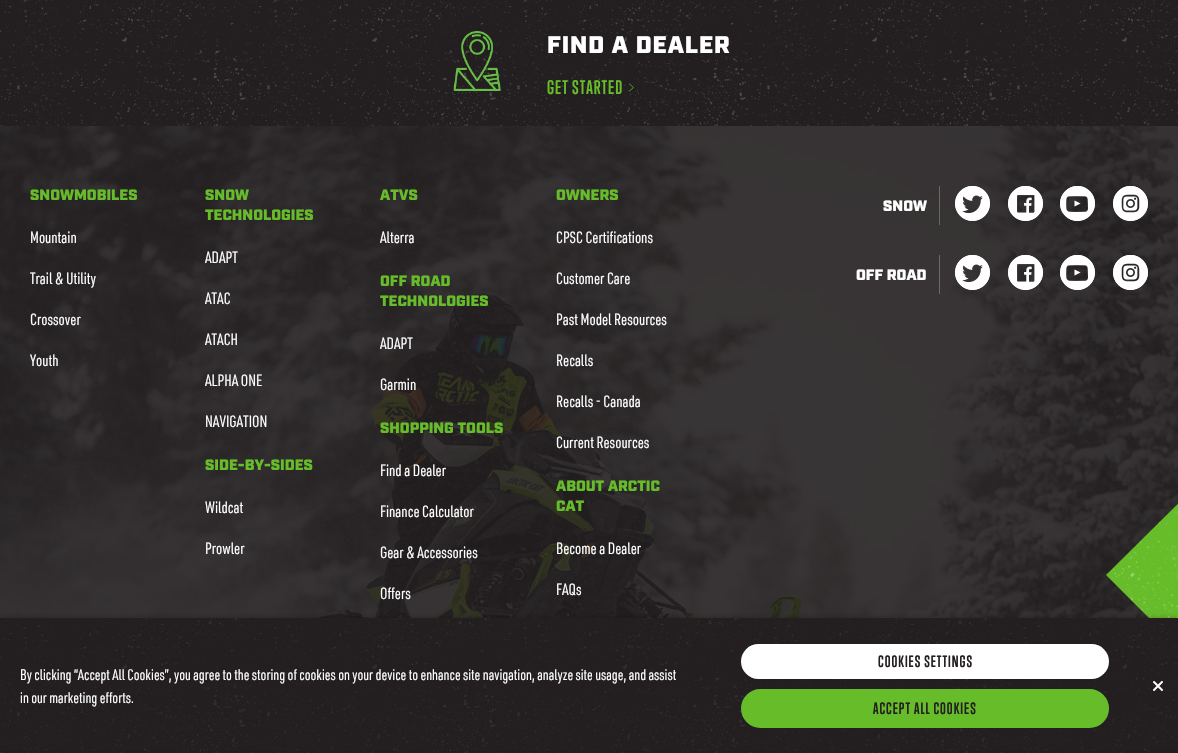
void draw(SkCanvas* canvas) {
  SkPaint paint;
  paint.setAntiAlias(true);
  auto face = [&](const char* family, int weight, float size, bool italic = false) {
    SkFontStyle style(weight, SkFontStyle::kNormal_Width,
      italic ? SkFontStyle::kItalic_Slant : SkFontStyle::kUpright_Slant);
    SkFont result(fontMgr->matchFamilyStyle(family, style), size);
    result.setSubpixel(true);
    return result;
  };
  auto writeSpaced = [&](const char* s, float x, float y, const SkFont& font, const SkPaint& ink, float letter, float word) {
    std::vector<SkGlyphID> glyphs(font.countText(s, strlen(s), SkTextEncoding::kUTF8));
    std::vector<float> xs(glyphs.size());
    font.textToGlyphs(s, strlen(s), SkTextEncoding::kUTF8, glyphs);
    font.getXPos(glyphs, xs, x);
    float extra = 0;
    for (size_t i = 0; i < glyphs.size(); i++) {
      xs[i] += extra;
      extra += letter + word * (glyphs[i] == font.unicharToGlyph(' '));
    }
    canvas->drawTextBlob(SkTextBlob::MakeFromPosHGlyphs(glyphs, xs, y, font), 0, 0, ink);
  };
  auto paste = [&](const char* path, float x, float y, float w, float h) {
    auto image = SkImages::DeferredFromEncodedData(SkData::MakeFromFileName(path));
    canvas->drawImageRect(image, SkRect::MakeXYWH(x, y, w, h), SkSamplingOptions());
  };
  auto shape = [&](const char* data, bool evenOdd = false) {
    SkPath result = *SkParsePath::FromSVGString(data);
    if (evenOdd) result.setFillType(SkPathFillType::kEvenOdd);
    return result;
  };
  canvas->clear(0xff231f20);
  paste("img/1.png", 0, 0, 1178, 126);
  paste("img/2.png", 453, 31, 48, 60);
  paint.setStroke(true);
  paint.setStrokeWidth(0.8f);
  paint.setStrokeCap(SkPaint::kRound_Cap);
  paint.setColor(0xff66bc29);
  canvas->drawPath(shape("M629.5 84L633.5 87.5L629.5 91"), paint);
  paste("img/3.png", 0, 126, 1178, 492);
  paint.setStroke(false);
  canvas->drawPath(shape("M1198 484L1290 575L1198 667L1106 575Z"), paint);
  paste("img/4.png", 1111, 511, 67, 107);
  paint.setColor(0xff696667);
  canvas->drawRect(SkRect::MakeXYWH(939, 186, 1, 39), paint);
  paint.setStroke(true);
  paint.setStrokeWidth(4);
  paint.setStrokeCap(SkPaint::kButt_Cap);
  paint.setColor(0xffffffff);
  canvas->drawCircle(972.5f, 203.5f, 15.5f, paint);
  paste("img/5.png", 955, 186, 35, 35);
  canvas->drawCircle(1025.5f, 203.5f, 15.5f, paint);
  paste("img/6.png", 1008, 186, 35, 35);
  canvas->drawCircle(1077.5f, 203.5f, 15.5f, paint);
  paste("img/7.png", 1060, 186, 35, 35);
  canvas->drawCircle(1130.5f, 203.5f, 15.5f, paint);
  paste("img/8.png", 1113, 186, 35, 35);
  paint.setStroke(false);
  paint.setColor(0xff6a6767);
  canvas->drawRect(SkRect::MakeXYWH(939, 255, 1, 39), paint);
  paint.setStroke(true);
  paint.setColor(0xffffffff);
  canvas->drawCircle(972.5f, 272.5f, 15.5f, paint);
  paste("img/9.png", 955, 255, 35, 35);
  canvas->drawCircle(1025.5f, 272.5f, 15.5f, paint);
  paste("img/10.png", 1008, 255, 35, 35);
  canvas->drawCircle(1077.5f, 272.5f, 15.5f, paint);
  paste("img/11.png", 1060, 255, 35, 35);
  canvas->drawCircle(1130.5f, 272.5f, 15.5f, paint);
  paste("img/12.png", 1113, 255, 35, 35);
  paint.setStroke(false);
  paint.setColor(0x26000000);
  paint.setMaskFilter(SkMaskFilter::MakeBlur(kNormal_SkBlurStyle, 2));
  canvas->drawRect(SkRect::MakeXYWH(0, 616, 1178, 135), paint);
  paint.setMaskFilter(nullptr);
  paint.setColor(0xff231f20);
  canvas->drawRect(SkRect::MakeXYWH(0, 618, 1178, 133), paint);
  paste("img/13.png", 0, 618, 1178, 135);
  paint.setColor(0xffffffff);
  canvas->drawRoundRect(SkRect::MakeXYWH(741, 644, 368, 35), 17.5f, 17.5f, paint);
  paint.setColor(0xff66bc29);
  canvas->drawRoundRect(SkRect::MakeXYWH(742, 690, 366, 37), 18.5f, 18.5f, paint);
  paint.setStroke(true);
  paint.setStrokeWidth(2);
  canvas->drawRoundRect(SkRect::MakeXYWH(742, 690, 366, 37), 18.5f, 18.5f, paint);
  paint.setStrokeCap(SkPaint::kRound_Cap);
  paint.setColor(0xffffffff);
  canvas->drawPath(shape("M1154 682L1162 690M1162 682L1154 690"), paint);
  auto f0 = face("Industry", 900, 24);
  paint.setStroke(false);
  writeSpaced("FIND A DEALER", 547, 53, f0, paint, 0.9f, 0);
  auto f1 = face("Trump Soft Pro", 700, 18);
  paint.setColor(0xff66bc29);
  writeSpaced("GET STARTED", 547, 94, f1, paint, 1, 0);
  auto f2 = face("Industry", 900, 15);
  canvas->drawString("SNOWMOBILES", 30, 200, f2, paint);
  auto f3 = face("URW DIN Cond", 400, 16);
  paint.setColor(0xffffffff);
  {
    const struct { const char* s; float x, y; } items[] = {
      {"Mountain", 30, 243},
      {"Trail & Utility", 30, 284},
      {"Crossover", 30, 325},
      {"Youth", 30, 366},
    };
    for (auto [s, x, y] : items) {
      canvas->drawString(s, x, y, f3, paint);
    }
  }
  paint.setColor(0xff66bc29);
  canvas->drawString("SNOW", 205, 200, f2, paint);
  canvas->drawString("TECHNOLOGIES", 205, 220, f2, paint);
  paint.setColor(0xffffffff);
  {
    const struct { const char* s; float x, y; } items[] = {
      {"ADAPT", 205, 263},
      {"ATAC", 205, 304},
      {"ATACH", 205, 345},
      {"ALPHA ONE", 205, 386},
      {"NAVIGATION", 205, 427},
    };
    for (auto [s, x, y] : items) {
      canvas->drawString(s, x, y, f3, paint);
    }
  }
  paint.setColor(0xff66bc29);
  canvas->drawString("SIDE-BY-SIDES", 205, 470, f2, paint);
  paint.setColor(0xffffffff);
  canvas->drawString("Wildcat", 205, 513, f3, paint);
  canvas->drawString("Prowler", 205, 554, f3, paint);
  paint.setColor(0xff66bc29);
  canvas->drawString("ATVS", 380, 200, f2, paint);
  paint.setColor(0xffffffff);
  canvas->drawString("Alterra", 380, 243, f3, paint);
  paint.setColor(0xff66bc29);
  canvas->drawString("OFF ROAD", 380, 286, f2, paint);
  canvas->drawString("TECHNOLOGIES", 380, 306, f2, paint);
  paint.setColor(0xffffffff);
  canvas->drawString("ADAPT", 380, 349, f3, paint);
  canvas->drawString("Garmin", 380, 390, f3, paint);
  paint.setColor(0xff66bc29);
  canvas->drawString("SHOPPING TOOLS", 380, 433, f2, paint);
  paint.setColor(0xffffffff);
  {
    const struct { const char* s; float x, y; } items[] = {
      {"Find a Dealer", 380, 476},
      {"Finance Calculator", 380, 517},
      {"Gear & Accessories", 380, 558},
      {"Offers", 380, 599},
    };
    for (auto [s, x, y] : items) {
      canvas->drawString(s, x, y, f3, paint);
    }
  }
  paint.setColor(0xff66bc29);
  canvas->drawString("OWNERS", 556, 200, f2, paint);
  paint.setColor(0xffffffff);
  {
    const struct { const char* s; float x, y; } items[] = {
      {"CPSC Certifications", 556, 243},
      {"Customer Care", 556, 284},
      {"Past Model Resources", 556, 325},
      {"Recalls", 556, 366},
      {"Recalls - Canada", 556, 407},
      {"Current Resources", 556, 448},
    };
    for (auto [s, x, y] : items) {
      canvas->drawString(s, x, y, f3, paint);
    }
  }
  paint.setColor(0xff66bc29);
  canvas->drawString("ABOUT ARCTIC", 556, 491, f2, paint);
  canvas->drawString("CAT", 556, 511, f2, paint);
  paint.setColor(0xffffffff);
  canvas->drawString("Become a Dealer", 556, 554, f3, paint);
  canvas->drawString("FAQs", 556, 595, f3, paint);
  canvas->drawString("SNOW", 883, 211, f2, paint);
  canvas->drawString("OFF ROAD", 856, 280, f2, paint);
  auto f4 = face("URW DIN Cond", 400, 15);
  canvas->drawString("By clicking “Accept All Cookies”, you agree to the storing of cookies on your device to enhance site navigation, analyze site usage, and assist", 20, 680, f4, paint);
  canvas->drawString("in our marketing efforts.", 20, 703, f4, paint);
  auto f5 = face("Trump Soft Pro", 700, 15);
  paint.setColor(0xff231f20);
  writeSpaced("COOKIES SETTINGS", 878, 667, f5, paint, 1, 0);
  writeSpaced("ACCEPT ALL COOKIES", 873, 714, f5, paint, 1, 0);
}
